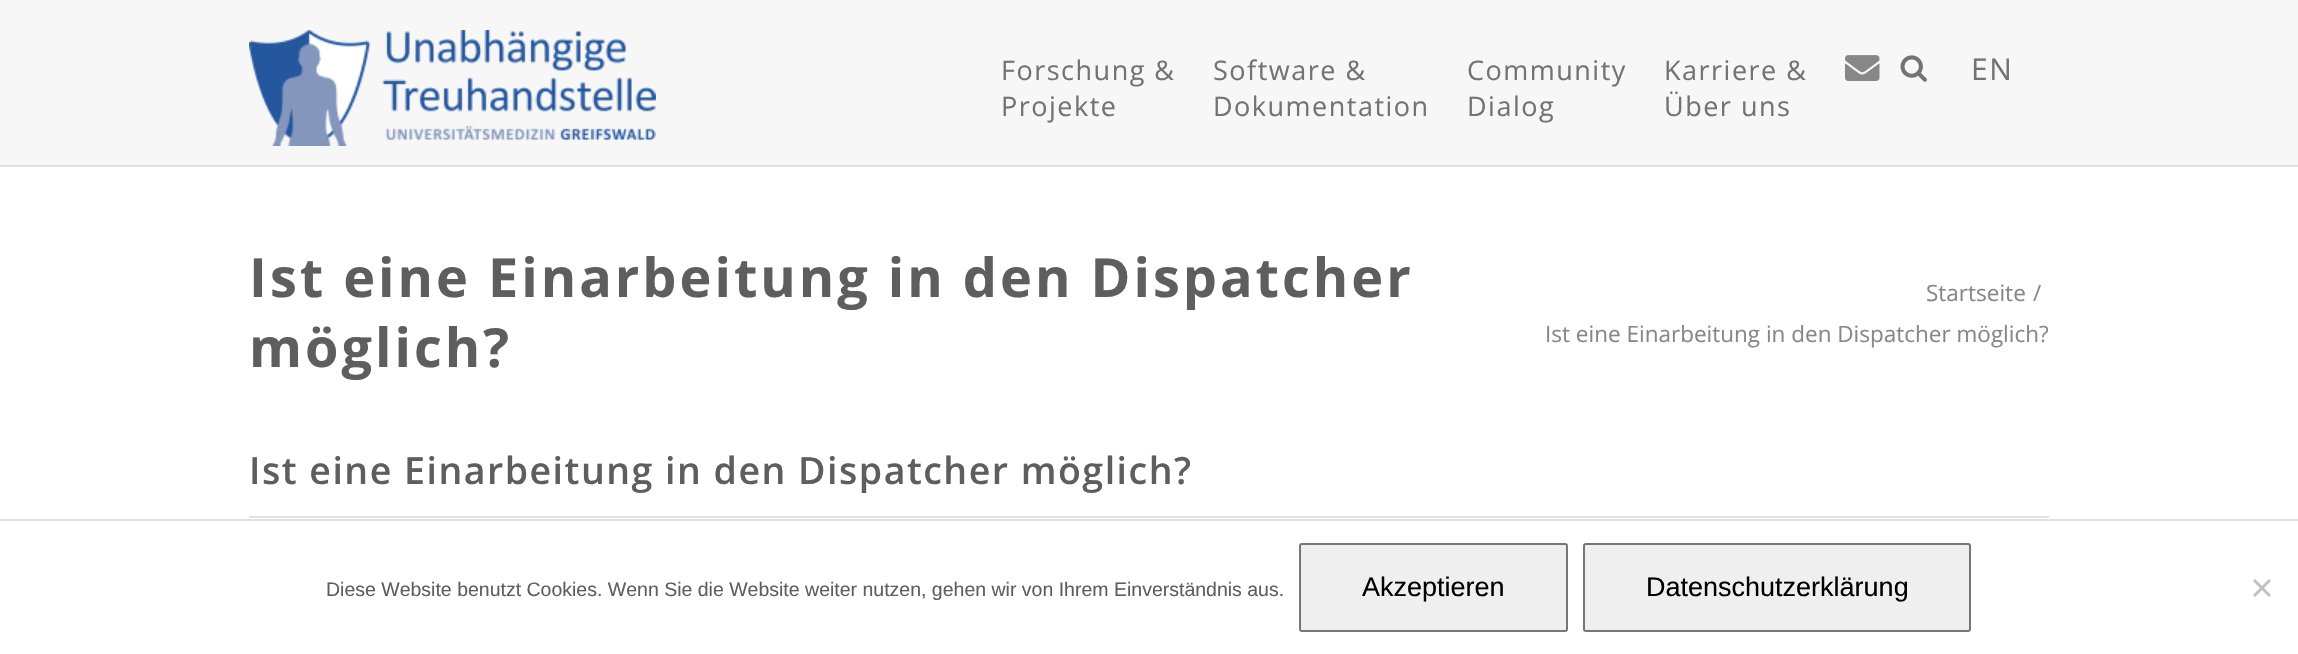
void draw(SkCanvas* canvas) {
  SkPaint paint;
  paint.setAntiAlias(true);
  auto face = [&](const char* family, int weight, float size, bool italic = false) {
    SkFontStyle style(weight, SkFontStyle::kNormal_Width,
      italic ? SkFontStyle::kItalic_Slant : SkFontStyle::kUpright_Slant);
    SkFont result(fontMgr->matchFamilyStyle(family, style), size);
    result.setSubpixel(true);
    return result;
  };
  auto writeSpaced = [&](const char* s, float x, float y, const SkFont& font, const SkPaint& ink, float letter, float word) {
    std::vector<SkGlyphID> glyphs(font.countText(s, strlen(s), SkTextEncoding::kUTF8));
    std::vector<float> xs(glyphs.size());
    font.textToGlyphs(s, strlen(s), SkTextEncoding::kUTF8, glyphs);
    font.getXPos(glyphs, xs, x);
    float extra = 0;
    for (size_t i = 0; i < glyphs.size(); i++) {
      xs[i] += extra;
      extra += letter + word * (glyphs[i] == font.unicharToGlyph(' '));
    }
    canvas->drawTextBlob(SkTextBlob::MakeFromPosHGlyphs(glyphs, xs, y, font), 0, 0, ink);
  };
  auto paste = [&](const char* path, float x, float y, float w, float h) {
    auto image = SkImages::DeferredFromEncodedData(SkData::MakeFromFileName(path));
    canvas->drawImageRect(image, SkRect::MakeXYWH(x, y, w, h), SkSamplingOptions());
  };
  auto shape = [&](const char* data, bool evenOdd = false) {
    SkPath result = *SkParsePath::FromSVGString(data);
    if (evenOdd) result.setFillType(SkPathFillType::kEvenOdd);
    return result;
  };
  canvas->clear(0xffffffff);
  paint.setColor(0xfff7f7f7);
  canvas->drawRect(SkRect::MakeXYWH(0, 0, 2298, 165), paint);
  paint.setColor(0xffe1e1e1);
  canvas->drawRect(SkRect::MakeXYWH(0, 165, 2298, 2), paint);
  paste("img/1.png", 249, 30, 407, 116);
  paste("img/2.png", 1845, 55, 35, 26);
  paste("img/3.png", 1900, 55, 27, 27);
  canvas->drawRect(SkRect::MakeXYWH(249, 516, 1800, 2), paint);
  canvas->drawRect(SkRect::MakeXYWH(0, 519, 2298, 2), paint);
  paint.setColor(0xffefefef);
  canvas->drawRoundRect(SkRect::MakeXYWH(1300, 544, 267, 87), 2, 2, paint);
  paint.setStroke(true);
  paint.setStrokeWidth(2);
  paint.setColor(0xff767676);
  canvas->drawRoundRect(SkRect::MakeXYWH(1300, 544, 267, 87), 2, 2, paint);
  paint.setStroke(false);
  paint.setColor(0xffefefef);
  canvas->drawRoundRect(SkRect::MakeXYWH(1584, 544, 386, 87), 2, 2, paint);
  paint.setStroke(true);
  paint.setColor(0xff767676);
  canvas->drawRoundRect(SkRect::MakeXYWH(1584, 544, 386, 87), 2, 2, paint);
  paint.setStroke(false);
  paint.setColor(0xffc0c0c0);
  canvas->drawPath(shape("M2269 579L2271 581L2255 597L2253 595Z"), paint);
  canvas->drawPath(shape("M2253 581L2255 579L2271 595L2269 597Z"), paint);
  auto f0 = face("Open Sans", 400, 27);
  paint.setColor(0xff737373);
  {
    const struct { const char* s; float x, y; } items[] = {
      {"Forschung &", 1001, 80},
      {"Projekte", 1001, 116},
      {"Software &", 1213, 80},
      {"Dokumentation", 1213, 116},
      {"Community", 1467, 80},
      {"Dialog", 1467, 116},
      {"Karriere &", 1664, 80},
      {"Über uns", 1664, 116},
    };
    for (auto [s, x, y] : items) {
      writeSpaced(s, x, y, f0, paint, 1.5f, 0);
    }
  }
  auto f1 = face("Open Sans", 400, 30);
  writeSpaced("EN", 1971, 80, f1, paint, 1.5f, 0);
  auto f2 = face("Open Sans", 700, 54);
  paint.setColor(0xff5e5e5e);
  writeSpaced("Ist eine Einarbeitung in den Dispatcher", 249, 297, f2, paint, 3, 0);
  writeSpaced("möglich?", 249, 367, f2, paint, 3, 0);
  auto f3 = face("Open Sans", 400, 22.5f);
  paint.setColor(0xff878787);
  {
    const struct { const char* s; float x, y; } items[] = {
      {"Startseite", 1926, 301},
      {"/", 2033, 301},
      {"Ist eine Einarbeitung in den Dispatcher möglich?", 1545, 342},
    };
    for (auto [s, x, y] : items) {
      canvas->drawString(s, x, y, f3, paint);
    }
  }
  auto f4 = face("Open Sans", 600, 37.5f);
  paint.setColor(0xff5e5e5e);
  writeSpaced("Ist eine Einarbeitung in den Dispatcher möglich?", 249, 484, f4, paint, 1.5f, 0);
  auto f5 = face("Liberation Sans", 400, 19.5f);
  canvas->drawString("Diese Website benutzt Cookies. Wenn Sie die Website weiter nutzen, gehen wir von Ihrem Einverständnis aus.", 326, 596, f5, paint);
  auto f6 = face("Liberation Sans", 400, 27);
  paint.setColor(0xff000000);
  canvas->drawString("Akzeptieren", 1362, 596, f6, paint);
  canvas->drawString("Datenschutzerklärung", 1646, 596, f6, paint);
}
